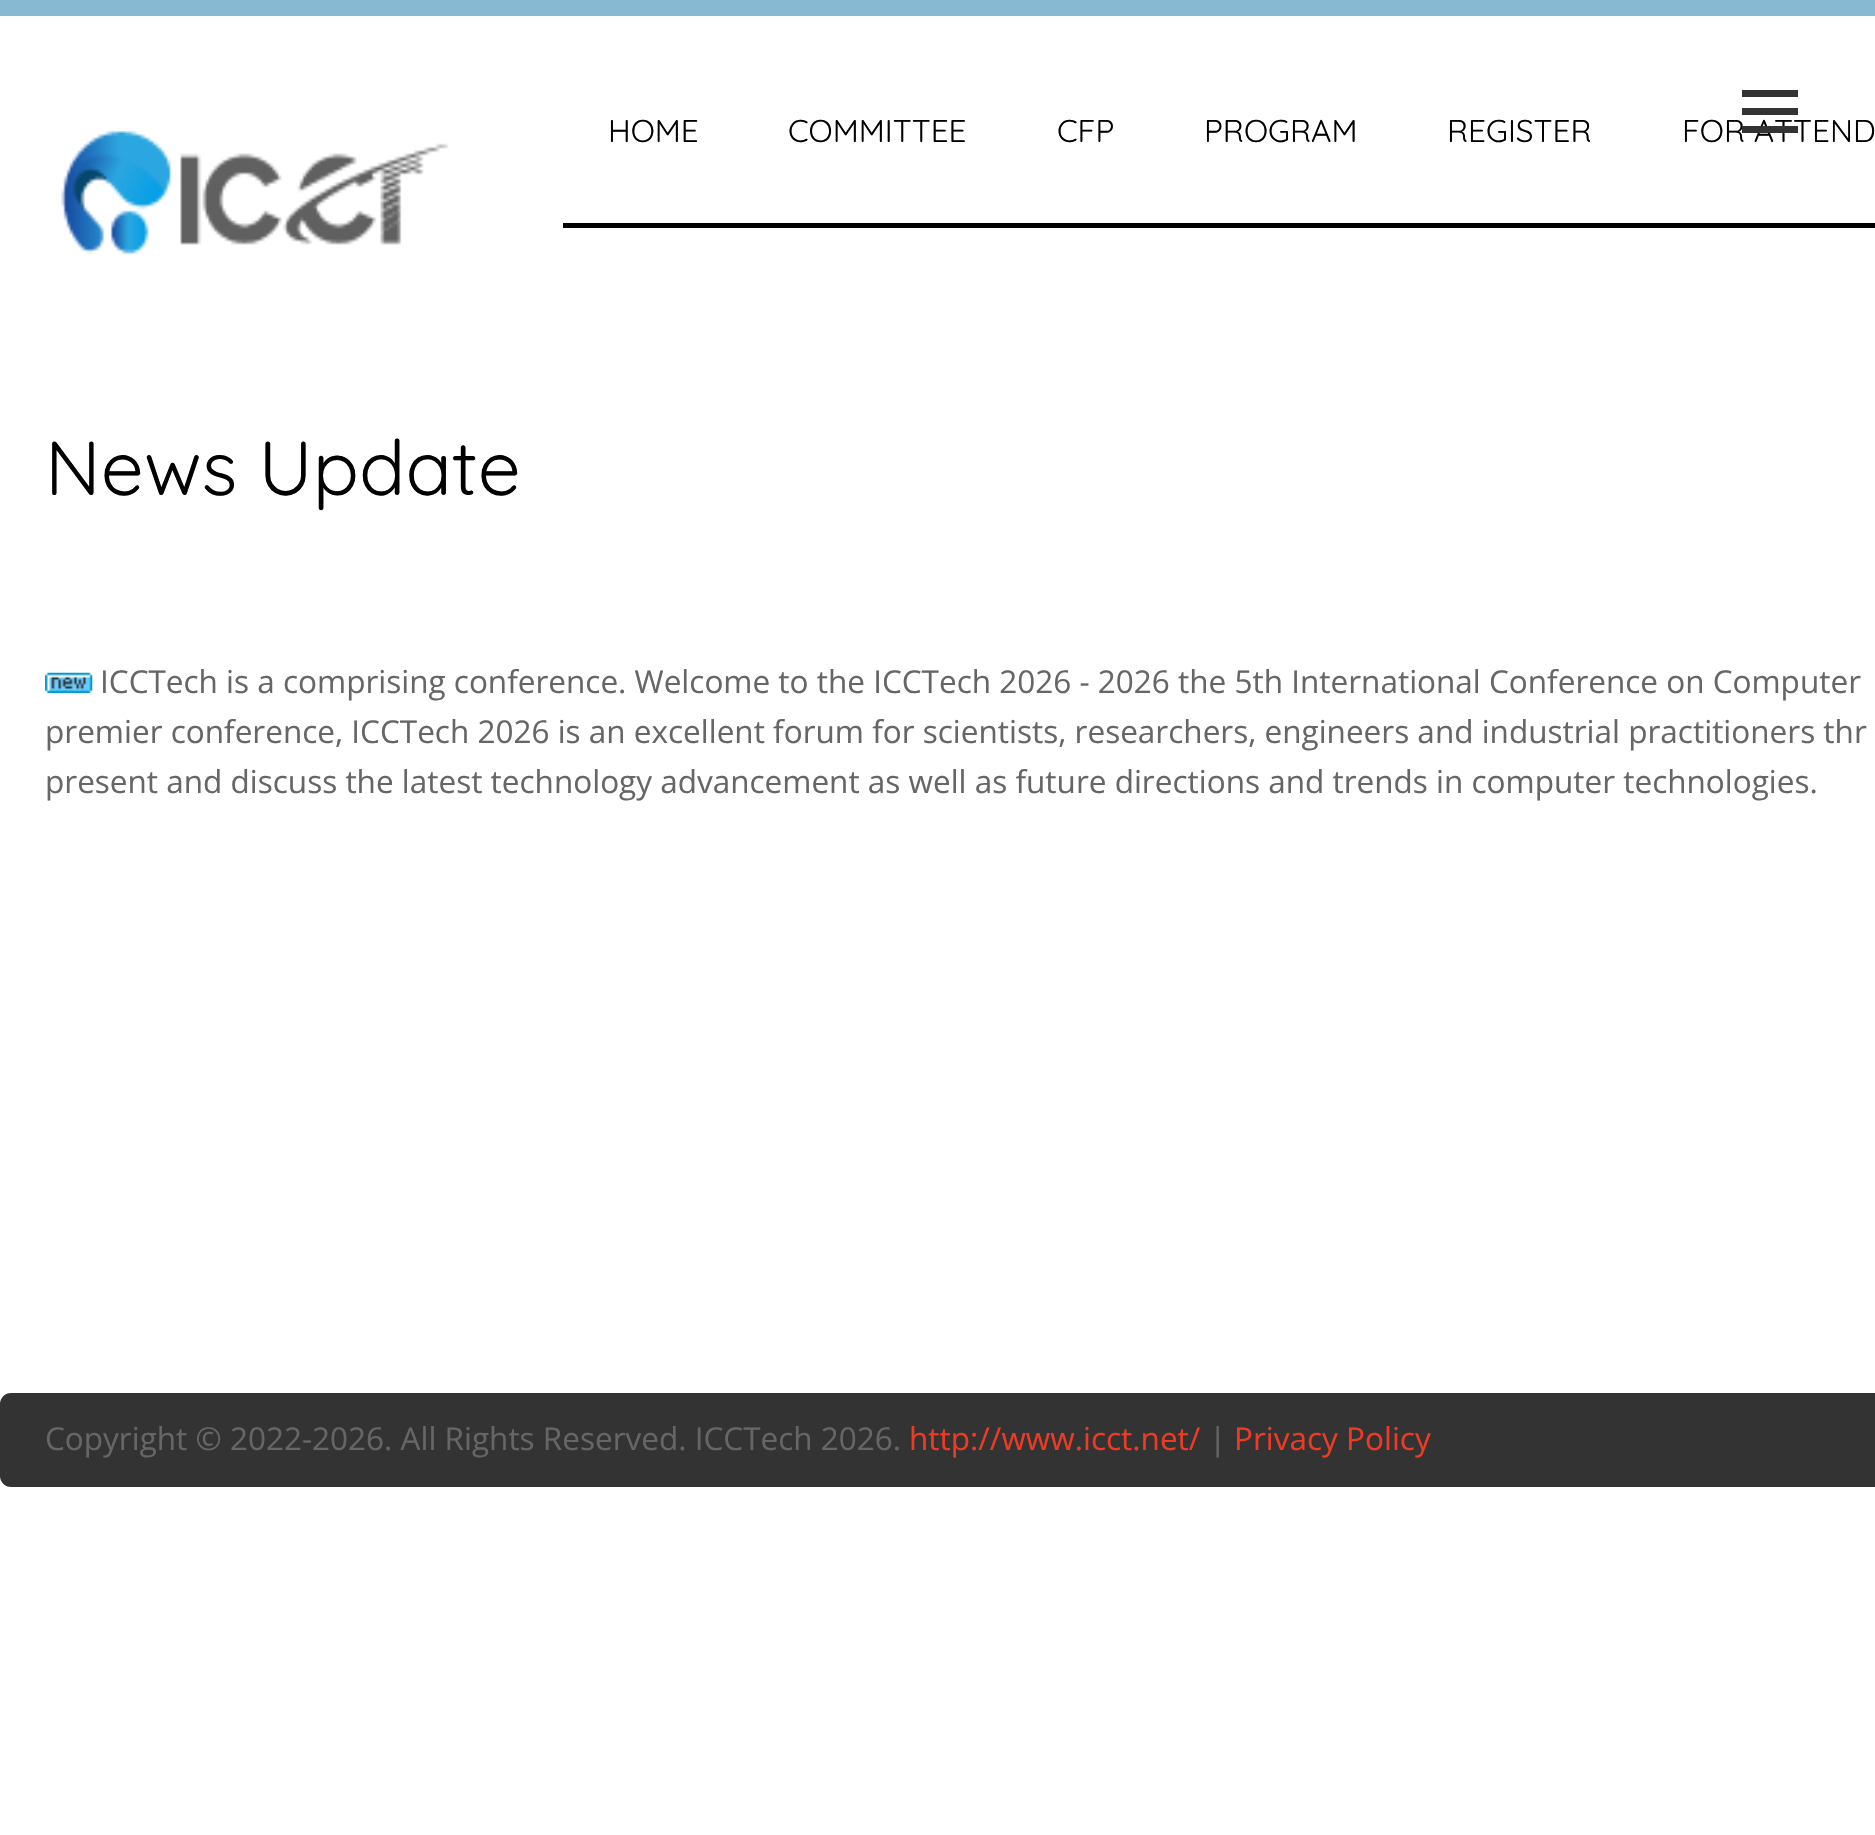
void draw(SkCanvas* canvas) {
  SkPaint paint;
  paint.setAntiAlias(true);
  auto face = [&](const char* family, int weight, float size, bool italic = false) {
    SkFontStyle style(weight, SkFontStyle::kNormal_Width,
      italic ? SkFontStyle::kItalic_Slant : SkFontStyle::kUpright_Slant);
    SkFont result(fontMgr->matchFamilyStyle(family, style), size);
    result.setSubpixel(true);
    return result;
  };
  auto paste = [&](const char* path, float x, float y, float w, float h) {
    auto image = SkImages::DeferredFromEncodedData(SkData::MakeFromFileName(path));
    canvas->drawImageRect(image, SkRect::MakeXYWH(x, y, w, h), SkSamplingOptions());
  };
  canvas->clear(0xffffffff);
  {
    const struct { float x, y, w, h; SkColor color; } items[] = {
      {0, 0, 1875, 16, 0xff87b9d2},
      {1742, 90, 56, 7, 0xff333333},
      {1742, 108, 56, 7, 0xff333333},
    };
    for (auto [x, y, w, h, color] : items) {
      paint.setColor(color);
      canvas->drawRect(SkRect::MakeXYWH(x, y, w, h), paint);
    }
  }
  paste("img/1.png", 61, 130, 388, 125);
  paint.setColor(0xff000000);
  canvas->drawRect(SkRect::MakeXYWH(563, 223, 1312, 5), paint);
  paste("img/2.png", 45, 672, 48, 21);
  paint.setColor(0xff333333);
  canvas->drawRoundRect(SkRect::MakeXYWH(0, 1393, 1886, 94), 11, 11, paint);
  auto f0 = face("Quicksand", 400, 31.5f);
  paint.setColor(0xff000000);
  {
    const struct { const char* s; float x, y; } items[] = {
      {"HOME", 608, 142},
      {"COMMITTEE", 788, 142},
      {"CFP", 1057, 142},
      {"PROGRAM", 1204, 142},
      {"REGISTER", 1447, 142},
      {"FOR ATTEND", 1682, 142},
    };
    for (auto [s, x, y] : items) {
      canvas->drawString(s, x, y, f0, paint);
    }
  }
  paint.setColor(0xff333333);
  canvas->drawRect(SkRect::MakeXYWH(1742, 126, 56, 7), paint);
  auto f1 = face("Quicksand", 400, 76.5f);
  paint.setColor(0xff000000);
  canvas->drawString("News Update", 45, 495, f1, paint);
  auto f2 = face("Open Sans", 400, 31.5f);
  paint.setColor(0xff666666);
  {
    const struct { const char* s; float x, y; } items[] = {
      {"ICCTech is a comprising conference. Welcome to the ICCTech 2026 - 2026 the 5th International Conference on Computer", 100, 693},
      {"premier conference, ICCTech 2026 is an excellent forum for scientists, researchers, engineers and industrial practitioners thr", 45, 743},
      {"present and discuss the latest technology advancement as well as future directions and trends in computer technologies.", 45, 793},
      {"Copyright © 2022-2026. All Rights Reserved. ICCTech 2026.", 45, 1450},
    };
    for (auto [s, x, y] : items) {
      canvas->drawString(s, x, y, f2, paint);
    }
  }
  paint.setColor(0xffef3b24);
  canvas->drawString("http://www.icct.net/", 909, 1450, f2, paint);
  paint.setColor(0xff666666);
  canvas->drawString("|", 1209, 1450, f2, paint);
  paint.setColor(0xffef3b24);
  canvas->drawString("Privacy Policy", 1234, 1450, f2, paint);
}
